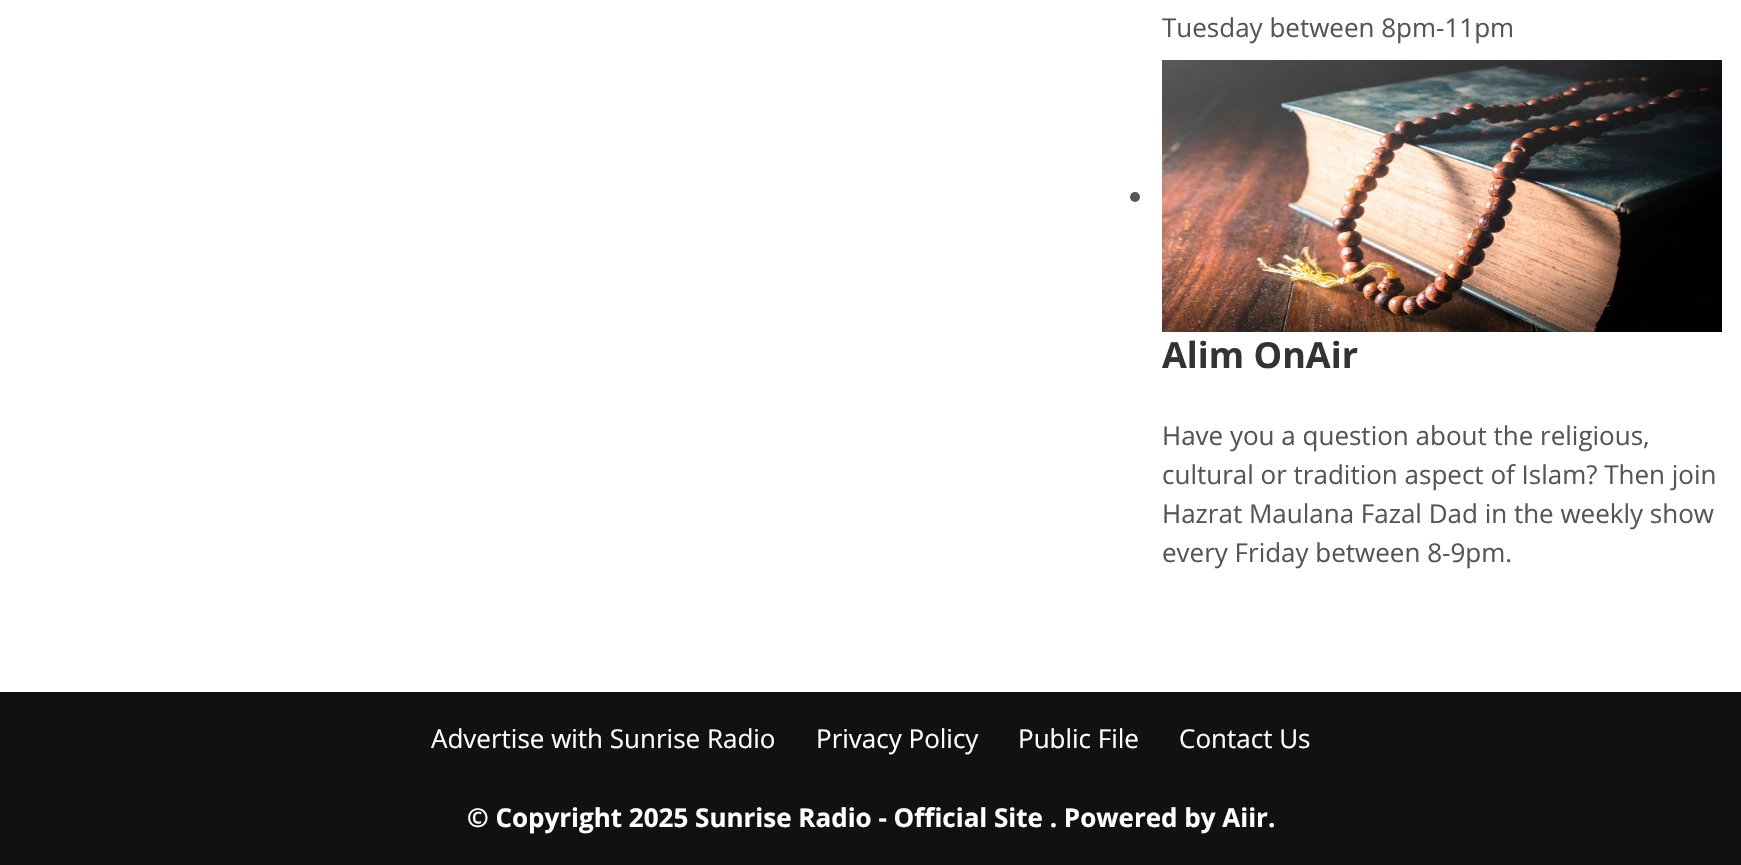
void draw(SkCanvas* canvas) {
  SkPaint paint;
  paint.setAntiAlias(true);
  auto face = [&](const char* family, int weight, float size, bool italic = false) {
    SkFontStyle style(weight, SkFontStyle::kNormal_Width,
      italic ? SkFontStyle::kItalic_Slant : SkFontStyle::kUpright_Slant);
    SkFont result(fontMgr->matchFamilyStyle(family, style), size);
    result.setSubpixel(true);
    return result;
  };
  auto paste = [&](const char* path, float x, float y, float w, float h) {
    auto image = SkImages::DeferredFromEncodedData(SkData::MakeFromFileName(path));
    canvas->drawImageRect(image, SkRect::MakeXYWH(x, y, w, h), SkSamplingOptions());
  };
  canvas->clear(0xffffffff);
  paint.setColor(0xff555555);
  canvas->drawCircle(1135, 197, 5, paint);
  paste("img/1.png", 1162, 60, 560, 272);
  paint.setColor(0xff111111);
  canvas->drawRect(SkRect::MakeXYWH(0, 692, 1741, 173), paint);
  auto f0 = face("Open Sans", 400, 26);
  paint.setColor(0xff555555);
  canvas->drawString("Tuesday between 8pm-11pm", 1162, 37, f0, paint);
  auto f1 = face("Open Sans", 700, 36);
  paint.setColor(0xff333333);
  canvas->drawString("Alim OnAir", 1162, 368, f1, paint);
  paint.setColor(0xff555555);
  {
    const struct { const char* s; float x, y; } items[] = {
      {"Have you a question about the religious,", 1162, 445},
      {"cultural or tradition aspect of Islam? Then join", 1162, 484},
      {"Hazrat Maulana Fazal Dad in the weekly show", 1162, 523},
      {"every Friday between 8-9pm.", 1162, 562},
    };
    for (auto [s, x, y] : items) {
      canvas->drawString(s, x, y, f0, paint);
    }
  }
  paint.setColor(0xffffffff);
  {
    const struct { const char* s; float x, y; } items[] = {
      {"Advertise with Sunrise Radio", 431, 748},
      {"Privacy Policy", 816, 748},
      {"Public File", 1018, 748},
      {"Contact Us", 1179, 748},
    };
    for (auto [s, x, y] : items) {
      canvas->drawString(s, x, y, f0, paint);
    }
  }
  auto f2 = face("Open Sans", 700, 26);
  canvas->drawString("© Copyright 2025 Sunrise Radio - Official Site . Powered by Aiir.", 467, 827, f2, paint);
}
